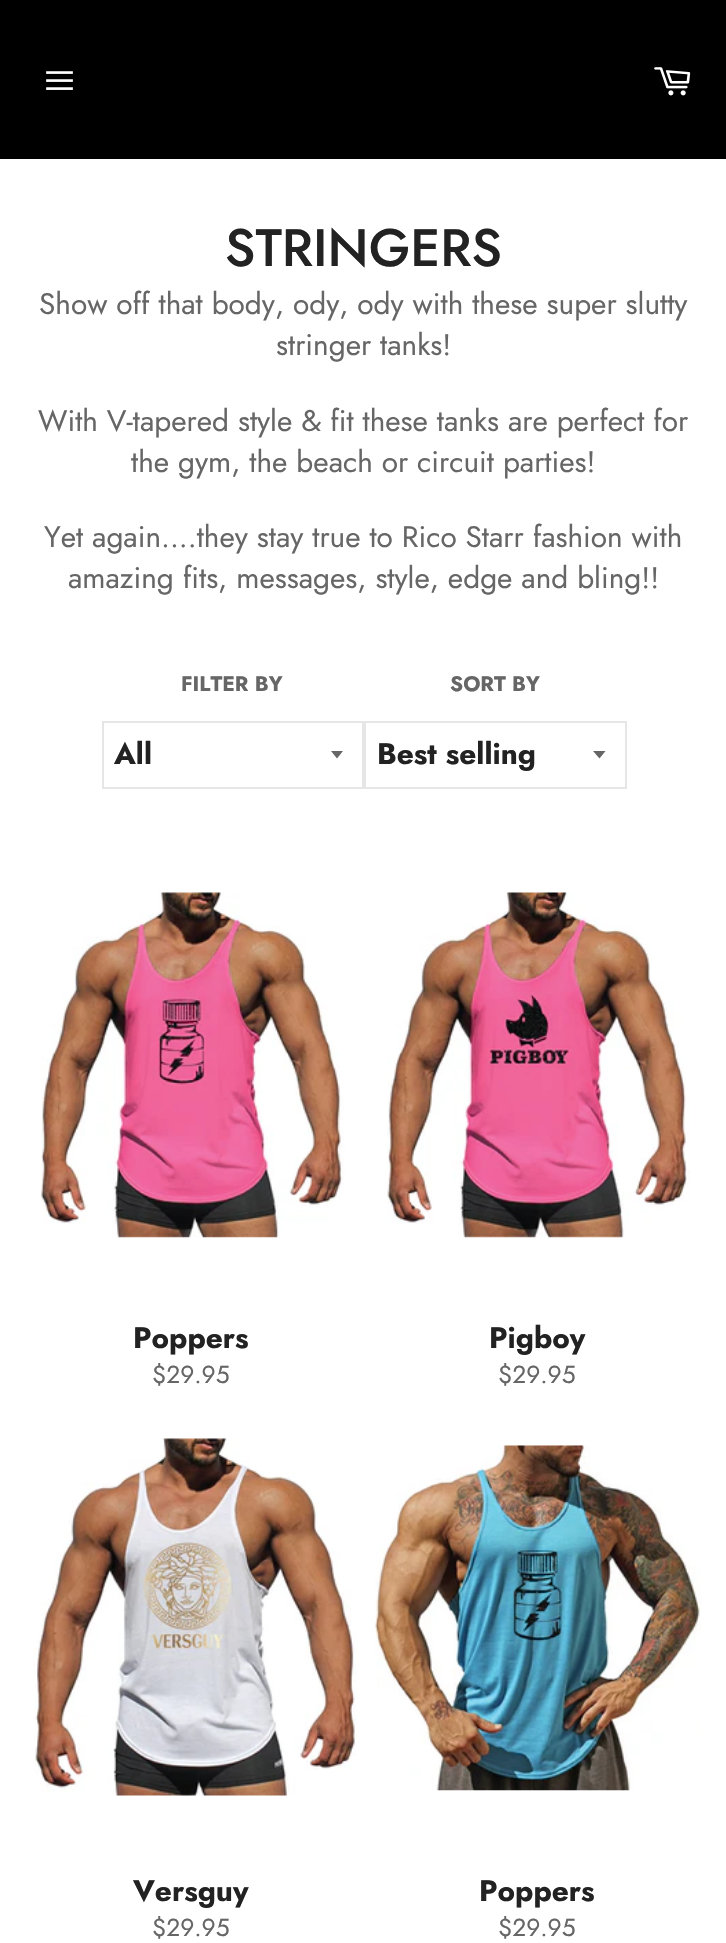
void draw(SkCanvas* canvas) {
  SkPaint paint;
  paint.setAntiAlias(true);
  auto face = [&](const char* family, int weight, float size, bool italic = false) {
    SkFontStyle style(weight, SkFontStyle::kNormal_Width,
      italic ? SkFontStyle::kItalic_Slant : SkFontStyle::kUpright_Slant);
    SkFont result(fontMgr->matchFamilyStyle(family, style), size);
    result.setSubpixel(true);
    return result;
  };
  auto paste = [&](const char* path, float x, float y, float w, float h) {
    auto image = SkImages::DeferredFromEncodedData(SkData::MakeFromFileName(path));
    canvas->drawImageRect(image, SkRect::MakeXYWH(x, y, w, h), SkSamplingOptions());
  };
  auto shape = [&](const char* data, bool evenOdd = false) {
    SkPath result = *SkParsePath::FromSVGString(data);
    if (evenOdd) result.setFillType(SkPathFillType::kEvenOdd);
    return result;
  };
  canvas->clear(0xffffffff);
  paint.setColor(0xff000000);
  canvas->drawRect(SkRect::MakeXYWH(0, 0, 726, 159), paint);
  paste("img/1.png", 46, 71, 27, 19);
  paste("img/2.png", 654, 67, 37, 29);
  paint.setColor(0xff666666);
  canvas->drawPath(shape("M331 751L337 758.5L343 751Z"), paint);
  paint.setStroke(true);
  paint.setStrokeWidth(2);
  paint.setColor(0xffe6e6e6);
  canvas->drawRect(SkRect::MakeXYWH(103, 722, 260, 66), paint);
  paint.setStroke(false);
  paint.setColor(0xff666666);
  canvas->drawPath(shape("M593 751L599.5 758.5L605.5 751Z"), paint);
  paint.setStroke(true);
  paint.setColor(0xffe6e6e6);
  canvas->drawRect(SkRect::MakeXYWH(365, 722, 261, 66), paint);
  paste("img/3.png", 41, 892, 304, 346);
  paste("img/4.png", 387, 892, 303, 346);
  paste("img/5.png", 33, 1438, 325, 358);
  paste("img/6.png", 375, 1445, 326, 346);
  auto f0 = face("Jost", 500, 52.5f);
  paint.setStroke(false);
  paint.setColor(0xff222222);
  canvas->drawString("STRINGERS", 225, 266, f0, paint);
  auto f1 = face("Jost", 400, 29.75f);
  paint.setColor(0xff666666);
  {
    const struct { const char* s; float x, y; } items[] = {
      {"Show off that body, ody, ody with these super slutty", 39, 314},
      {"stringer tanks!", 276, 355},
      {"With V-tapered style & fit these tanks are perfect for", 38, 431},
      {"the gym, the beach or circuit parties!", 131, 472},
      {"Yet again....they stay true to Rico Starr fashion with", 44, 547},
      {"amazing fits, messages, style, edge and bling!!", 68, 588},
    };
    for (auto [s, x, y] : items) {
      canvas->drawString(s, x, y, f1, paint);
    }
  }
  auto f2 = face("Jost", 700, 21);
  canvas->drawString("FILTER BY", 181, 691, f2, paint);
  auto f3 = face("Jost", 700, 29.75f);
  paint.setColor(0xff222222);
  canvas->drawString("All", 114, 764, f3, paint);
  paint.setColor(0xff666666);
  canvas->drawString("SORT BY", 450, 691, f2, paint);
  paint.setColor(0xff222222);
  canvas->drawString("Best selling", 377, 764, f3, paint);
  canvas->drawString("Poppers", 133, 1348, f3, paint);
  auto f4 = face("Jost", 400, 24.5f);
  paint.setColor(0xff666666);
  canvas->drawString("$29.95", 152, 1383, f4, paint);
  paint.setColor(0xff222222);
  canvas->drawString("Pigboy", 489, 1348, f3, paint);
  paint.setColor(0xff666666);
  canvas->drawString("$29.95", 498, 1383, f4, paint);
  paint.setColor(0xff222222);
  canvas->drawString("Versguy", 133, 1901, f3, paint);
  paint.setColor(0xff666666);
  canvas->drawString("$29.95", 152, 1936, f4, paint);
  paint.setColor(0xff222222);
  canvas->drawString("Poppers", 479, 1901, f3, paint);
  paint.setColor(0xff666666);
  canvas->drawString("$29.95", 498, 1936, f4, paint);
}
